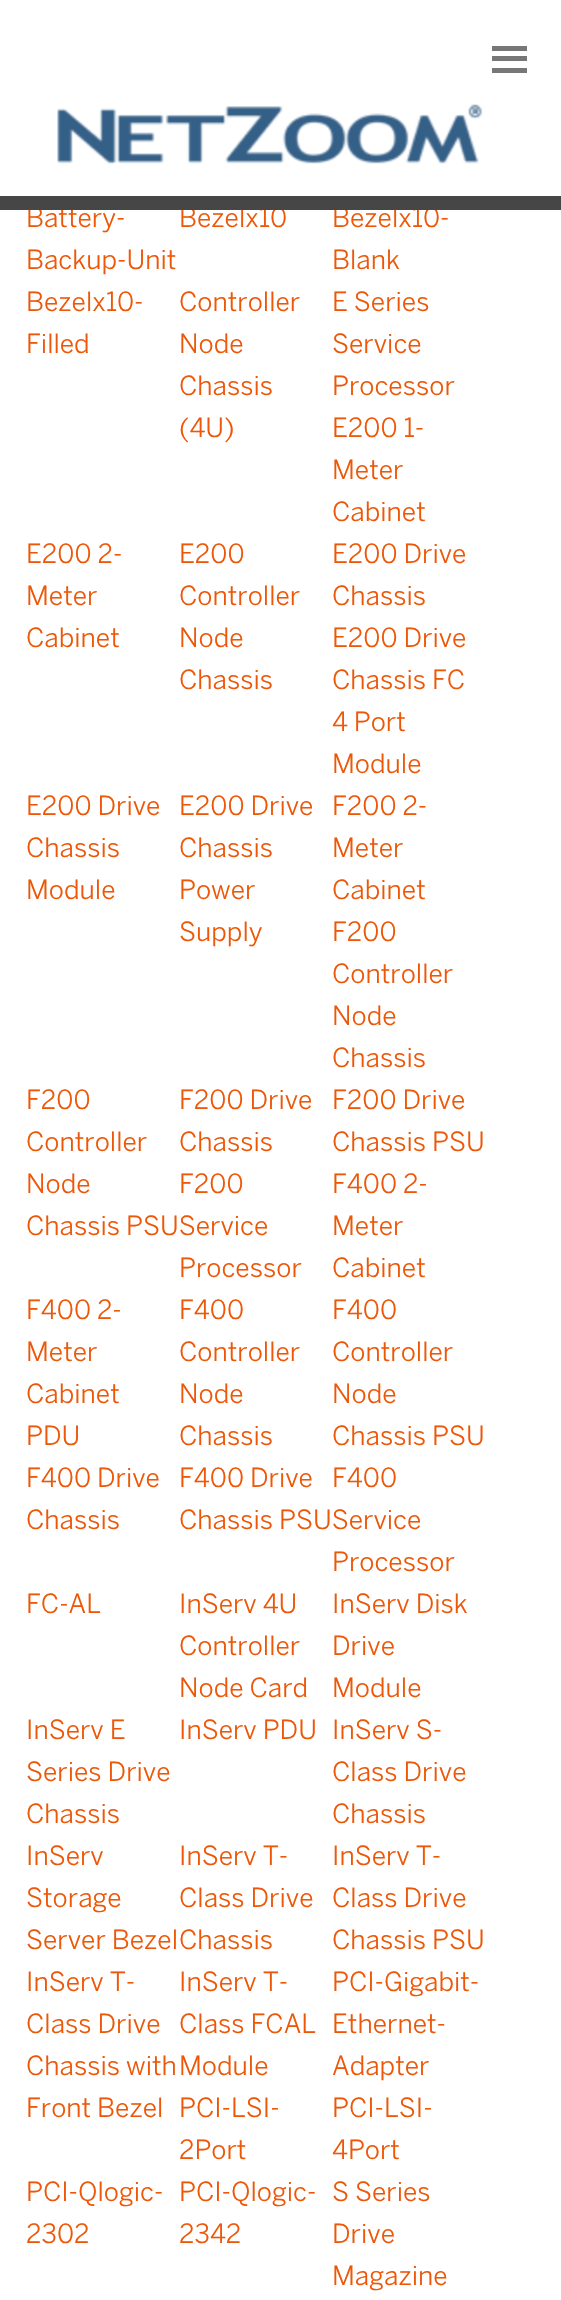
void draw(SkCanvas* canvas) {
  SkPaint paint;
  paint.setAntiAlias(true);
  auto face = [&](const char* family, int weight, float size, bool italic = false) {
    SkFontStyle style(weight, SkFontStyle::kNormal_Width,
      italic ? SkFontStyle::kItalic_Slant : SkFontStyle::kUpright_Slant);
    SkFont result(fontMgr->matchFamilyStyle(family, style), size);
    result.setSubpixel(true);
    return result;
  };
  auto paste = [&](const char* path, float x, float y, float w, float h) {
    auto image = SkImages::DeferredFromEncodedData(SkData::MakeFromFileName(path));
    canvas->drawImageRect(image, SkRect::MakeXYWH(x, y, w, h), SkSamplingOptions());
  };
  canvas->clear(0xffffffff);
  {
    const struct { float x, y, w, h; SkColor color; } items[] = {
      {492, 46, 35, 5, 0xff777777},
      {492, 56, 35, 5, 0xff777777},
      {492, 68, 35, 5, 0xff777777},
    };
    for (auto [x, y, w, h, color] : items) {
      paint.setColor(color);
      canvas->drawRect(SkRect::MakeXYWH(x, y, w, h), paint);
    }
  }
  paste("img/1.png", 57, 104, 426, 60);
  auto f0 = face("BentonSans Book", 400, 26.25f);
  paint.setColor(0xffed5707);
  {
    const struct { const char* s; float x, y; } items[] = {
      {"Battery-", 26, 227},
      {"Backup-Unit", 26, 269},
      {"Bezelx10", 179, 227},
      {"Bezelx10-", 332, 227},
    };
    for (auto [s, x, y] : items) {
      canvas->drawString(s, x, y, f0, paint);
    }
  }
  paint.setColor(0xff464646);
  canvas->drawRect(SkRect::MakeXYWH(0, 196, 561, 14), paint);
  paint.setColor(0xffed5707);
  {
    const struct { const char* s; float x, y; } items[] = {
      {"Blank", 332, 269},
      {"Bezelx10-", 26, 311},
      {"Filled", 26, 353},
      {"Controller", 179, 311},
      {"Node", 179, 353},
      {"Chassis", 179, 395},
      {"(4U)", 179, 437},
      {"E Series", 332, 311},
      {"Service", 332, 353},
      {"Processor", 332, 395},
      {"E200 1-", 332, 437},
      {"Meter", 332, 479},
      {"Cabinet", 332, 521},
      {"E200 2-", 26, 563},
      {"Meter", 26, 605},
      {"Cabinet", 26, 647},
      {"E200", 179, 563},
      {"Controller", 179, 605},
      {"Node", 179, 647},
      {"Chassis", 179, 689},
      {"E200 Drive", 332, 563},
      {"Chassis", 332, 605},
      {"E200 Drive", 332, 647},
      {"Chassis FC", 332, 689},
      {"4 Port", 332, 731},
      {"Module", 332, 773},
      {"E200 Drive", 26, 815},
      {"Chassis", 26, 857},
      {"Module", 26, 899},
      {"E200 Drive", 179, 815},
      {"Chassis", 179, 857},
      {"Power", 179, 899},
      {"Supply", 179, 941},
      {"F200 2-", 332, 815},
      {"Meter", 332, 857},
      {"Cabinet", 332, 899},
      {"F200", 332, 941},
      {"Controller", 332, 983},
      {"Node", 332, 1025},
      {"Chassis", 332, 1067},
      {"F200", 26, 1109},
      {"Controller", 26, 1151},
      {"Node", 26, 1193},
      {"Chassis PSUService", 26, 1235},
      {"F200 Drive", 179, 1109},
      {"Chassis", 179, 1151},
      {"F200 Drive", 332, 1109},
      {"Chassis PSU", 332, 1151},
      {"F200", 179, 1193},
      {"Processor", 179, 1277},
      {"F400 2-", 332, 1193},
      {"Meter", 332, 1235},
      {"Cabinet", 332, 1277},
      {"F400 2-", 26, 1319},
      {"Meter", 26, 1361},
      {"Cabinet", 26, 1403},
      {"PDU", 26, 1445},
      {"F400", 179, 1319},
      {"Controller", 179, 1361},
      {"Node", 179, 1403},
      {"Chassis", 179, 1445},
      {"F400", 332, 1319},
      {"Controller", 332, 1361},
      {"Node", 332, 1403},
      {"Chassis PSU", 332, 1445},
      {"F400 Drive", 26, 1487},
      {"Chassis", 26, 1529},
      {"F400 Drive", 179, 1487},
      {"Chassis PSUService", 179, 1529},
      {"F400", 332, 1487},
      {"Processor", 332, 1571},
      {"FC-AL", 26, 1613},
      {"InServ 4U", 179, 1613},
      {"Controller", 179, 1655},
      {"Node Card", 179, 1697},
      {"InServ Disk", 332, 1613},
      {"Drive", 332, 1655},
      {"Module", 332, 1697},
      {"InServ E", 26, 1739},
      {"Series Drive", 26, 1781},
      {"Chassis", 26, 1823},
      {"InServ PDU", 179, 1739},
      {"InServ S-", 332, 1739},
      {"Class Drive", 332, 1781},
      {"Chassis", 332, 1823},
      {"InServ", 26, 1865},
      {"Storage", 26, 1907},
      {"Server Bezel", 26, 1949},
      {"InServ T-", 179, 1865},
      {"Class Drive", 179, 1907},
      {"Chassis", 179, 1949},
      {"InServ T-", 332, 1865},
      {"Class Drive", 332, 1907},
      {"Chassis PSU", 332, 1949},
      {"InServ T-", 26, 1991},
      {"Class Drive", 26, 2033},
      {"Chassis with", 26, 2075},
      {"Front Bezel", 26, 2117},
      {"InServ T-", 179, 1991},
      {"Class FCAL", 179, 2033},
      {"Module", 179, 2075},
      {"PCI-Gigabit-", 332, 1991},
      {"Ethernet-", 332, 2033},
      {"Adapter", 332, 2075},
      {"PCI-LSI-", 179, 2117},
      {"2Port", 179, 2159},
      {"PCI-LSI-", 332, 2117},
      {"4Port", 332, 2159},
      {"PCI-Qlogic-", 26, 2201},
      {"2302", 26, 2243},
      {"PCI-Qlogic-", 179, 2201},
      {"2342", 179, 2243},
      {"S Series", 332, 2201},
      {"Drive", 332, 2243},
      {"Magazine", 332, 2285},
    };
    for (auto [s, x, y] : items) {
      canvas->drawString(s, x, y, f0, paint);
    }
  }
}
